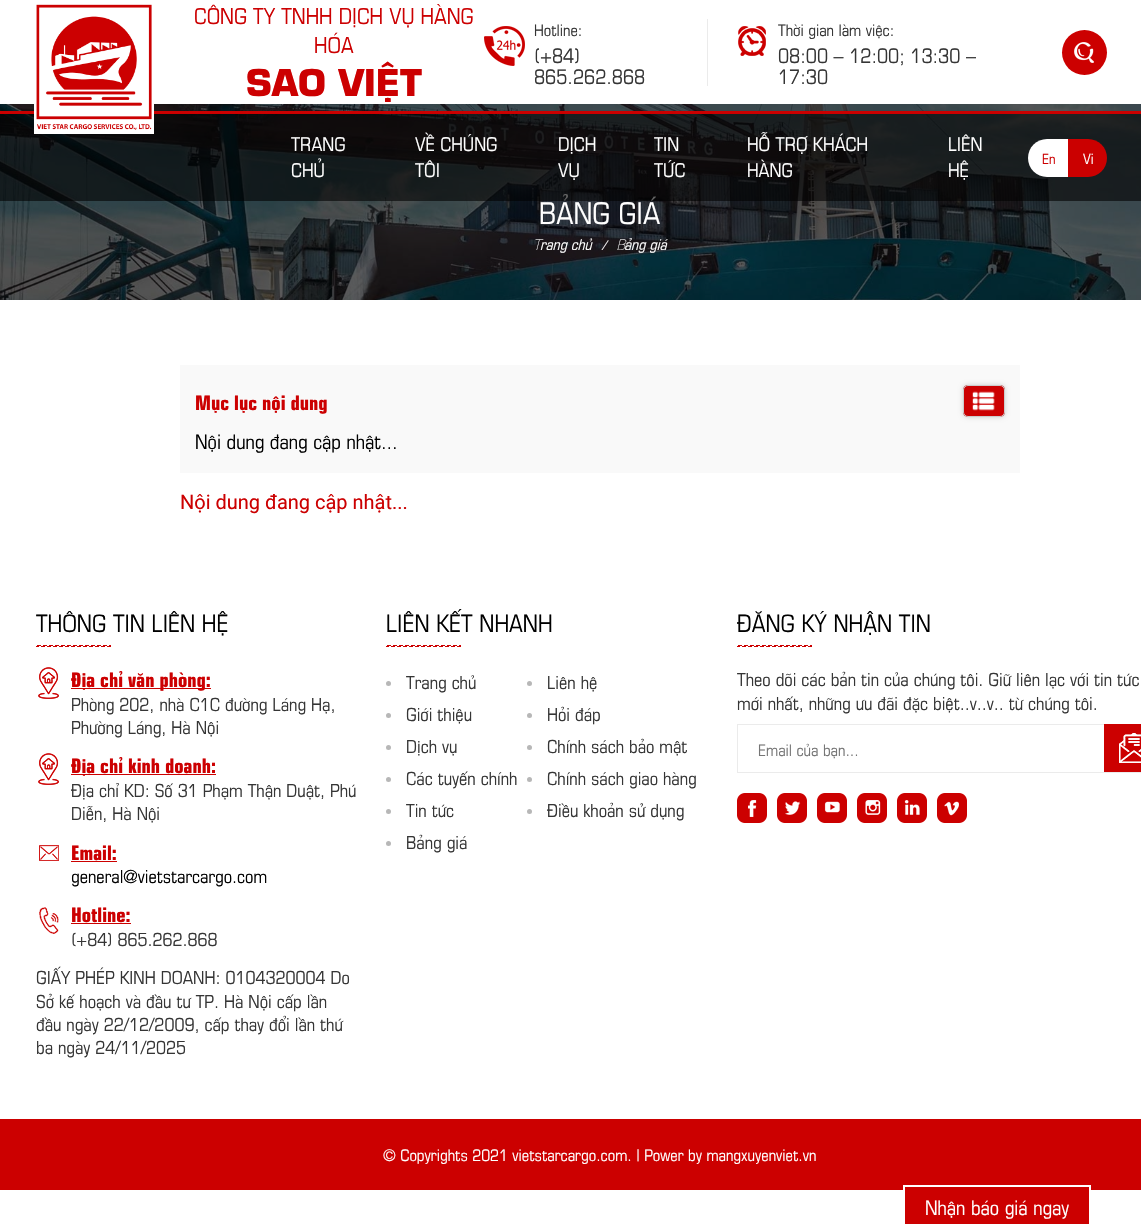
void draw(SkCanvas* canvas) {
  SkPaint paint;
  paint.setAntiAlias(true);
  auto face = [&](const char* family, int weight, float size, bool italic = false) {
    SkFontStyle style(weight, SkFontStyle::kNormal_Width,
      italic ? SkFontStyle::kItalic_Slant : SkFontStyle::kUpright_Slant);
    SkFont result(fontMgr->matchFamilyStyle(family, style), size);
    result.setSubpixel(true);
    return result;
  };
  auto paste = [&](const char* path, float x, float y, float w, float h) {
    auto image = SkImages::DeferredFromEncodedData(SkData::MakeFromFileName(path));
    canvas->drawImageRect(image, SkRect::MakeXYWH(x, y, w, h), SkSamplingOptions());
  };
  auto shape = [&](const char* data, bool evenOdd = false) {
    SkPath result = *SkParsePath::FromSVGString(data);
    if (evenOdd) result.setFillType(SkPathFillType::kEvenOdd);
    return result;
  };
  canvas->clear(0xffffffff);
  paint.setColor(0xffebebeb);
  canvas->drawRect(SkRect::MakeXYWH(707, 19, 1, 67), paint);
  paste("img/2.png", 484, 26, 41, 40);
  paste("img/3.png", 738, 26, 28, 30);
  paint.setColor(0xffcc0000);
  canvas->drawCircle(1084.5f, 52.5f, 22.5f, paint);
  paste("img/4.png", 1074, 42, 20, 21);
  paste("img/5.png", 0, 104, 1141, 196);
  paint.setColor(0xffcb0000);
  canvas->drawRect(SkRect::MakeXYWH(0, 111, 1141, 3), paint);
  paint.setColor(0xfff9f9f9);
  canvas->drawRect(SkRect::MakeXYWH(180, 365, 840, 108), paint);
  paint.setColor(0xffcccccc);
  paint.setMaskFilter(SkMaskFilter::MakeBlur(kNormal_SkBlurStyle, 2.5f));
  canvas->drawRoundRect(SkRect::MakeXYWH(963, 385, 42, 32), 5, 5, paint);
  paint.setMaskFilter(nullptr);
  paint.setColor(0xffcc0001);
  canvas->drawRoundRect(SkRect::MakeXYWH(963, 385, 42, 32), 5, 5, paint);
  paste("img/6.png", 972, 391, 23, 20);
  paint.setStroke(true);
  paint.setStrokeWidth(1);
  paint.setColor(0xffcccccc);
  canvas->drawRoundRect(SkRect::MakeXYWH(963.5f, 385.5f, 41, 31), 4.5f, 4.5f, paint);
  paste("img/7.png", 36, 645, 75, 2);
  paste("img/8.png", 38, 667, 21, 32);
  paint.setStroke(false);
  paint.setColor(0xffcc0000);
  canvas->drawRect(SkRect::MakeXYWH(71, 688, 140, 1), paint);
  paste("img/8.png", 38, 753, 21, 32);
  canvas->drawRect(SkRect::MakeXYWH(71, 774, 145, 1), paint);
  paste("img/9.png", 39, 845, 20, 16);
  canvas->drawRect(SkRect::MakeXYWH(71, 861, 46, 1), paint);
  paste("img/10.png", 39, 907, 20, 27);
  canvas->drawRect(SkRect::MakeXYWH(71, 923, 60, 1), paint);
  paste("img/7.png", 386, 645, 75, 2);
  paint.setColor(0xffb7b7b7);
  canvas->drawCircle(388.5f, 683.5f, 2.5f, paint);
  canvas->drawCircle(529.5f, 683.5f, 2.5f, paint);
  canvas->drawCircle(388.5f, 715.5f, 2.5f, paint);
  canvas->drawCircle(529.5f, 715.5f, 2.5f, paint);
  canvas->drawCircle(388.5f, 747.5f, 2.5f, paint);
  canvas->drawCircle(529.5f, 747.5f, 2.5f, paint);
  canvas->drawCircle(388.5f, 779.5f, 2.5f, paint);
  canvas->drawCircle(529.5f, 779.5f, 2.5f, paint);
  canvas->drawCircle(388.5f, 811.5f, 2.5f, paint);
  canvas->drawCircle(529.5f, 811.5f, 2.5f, paint);
  canvas->drawCircle(388.5f, 843.5f, 2.5f, paint);
  paste("img/7.png", 737, 645, 75, 2);
  paint.setStroke(true);
  paint.setColor(0xffebebeb);
  canvas->drawRect(SkRect::MakeXYWH(737.5f, 724.5f, 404, 48), paint);
  paint.setStroke(false);
  paint.setColor(0xffcc0000);
  canvas->drawRect(SkRect::MakeXYWH(1104, 724, 37, 48), paint);
  paste("img/11.png", 1119, 733, 22, 30);
  paste("img/12.png", 737, 793, 30, 30);
  paste("img/13.png", 777, 793, 30, 30);
  paste("img/14.png", 817, 793, 30, 30);
  paste("img/15.png", 857, 793, 30, 30);
  paste("img/16.png", 897, 793, 30, 30);
  paste("img/17.png", 937, 793, 30, 30);
  canvas->drawRect(SkRect::MakeXYWH(0, 1119, 1141, 71), paint);
  canvas->drawRect(SkRect::MakeXYWH(905, 1190, 184, 34), paint);
  paint.setStroke(true);
  paint.setStrokeWidth(2);
  paint.setColor(0xffffffff);
  canvas->drawRect(SkRect::MakeXYWH(904, 1186, 186, 39), paint);
  auto f0 = face("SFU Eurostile", 200, 22);
  paint.setStroke(false);
  paint.setColor(0xffcc0001);
  canvas->drawString("CÔNG TY TNHH DỊCH VỤ HÀNG", 194, 24, f0, paint);
  canvas->drawString("HÓA", 314, 53, f0, paint);
  auto f1 = face("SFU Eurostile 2", 700, 36);
  canvas->drawString("SAO VIỆT", 246, 96, f1, paint);
  auto f2 = face("SFU Eurostile", 200, 16);
  paint.setColor(0xff353535);
  canvas->drawString("Hotline:", 534, 36, f2, paint);
  auto f3 = face("SFU Eurostile", 200, 20);
  canvas->drawString("(+84)", 534, 63, f3, paint);
  canvas->drawString("865.262.868", 534, 84, f3, paint);
  canvas->drawString("Thời gian làm việc:", 778, 36, f2, paint);
  canvas->drawString("08:00 – 12:00; 13:30 –", 778, 63, f3, paint);
  canvas->drawString("17:30", 778, 84, f3, paint);
  auto f4 = face("SFU Eurostile", 200, 30);
  paint.setColor(0xffffffff);
  canvas->drawString("BẢNG GIÁ", 539, 224, f4, paint);
  paint.setColor(0x99000000);
  canvas->drawRect(SkRect::MakeXYWH(0, 114, 1141, 87), paint);
  paste("img/1.png", 34, 4, 120, 130);
  auto f5 = face("SFU Eurostile", 200, 19);
  paint.setColor(0xffffffff);
  {
    const struct { const char* s; float x, y; } items[] = {
      {"HỆ", 948, 177},
      {"LIÊN", 948, 151},
      {"HÀNG", 747, 177},
      {"HỖ TRỢ KHÁCH", 747, 151},
      {"TỨC", 654, 177},
      {"TIN", 654, 151},
      {"VỤ", 558, 177},
      {"DỊCH", 558, 151},
      {"TÔI", 415, 177},
      {"VỀ CHÚNG", 415, 151},
      {"CHỦ", 291, 177},
      {"TRANG", 291, 151},
    };
    for (auto [s, x, y] : items) {
      canvas->drawString(s, x, y, f5, paint);
    }
  }
  paint.setColor(0xffcb0000);
  canvas->drawPath(shape("M1068 139H1088C1098.5 139 1107 147.5 1107 158C1107 168.5 1098.5 177 1088 177H1068Z"), paint);
  auto f6 = face("SFU Eurostile", 200, 14);
  paint.setColor(0xffffffff);
  canvas->drawString("Vi", 1083, 164, f6, paint);
  canvas->drawPath(shape("M1047 139H1068V177H1047C1036.5 177 1028 168.5 1028 158C1028 147.5 1036.5 139 1047 139Z"), paint);
  paint.setColor(0xffcc0001);
  canvas->drawString("En", 1042, 164, f6, paint);
  auto f7 = face("Noto Sans", 100, 15, true);
  paint.setColor(0xffffffff);
  canvas->drawString("T", 533, 250, f7, paint);
  auto f8 = face("SFU Eurostile", 200, 15, true);
  canvas->drawString("rang chủ", 540, 250, f8, paint);
  auto f9 = face("SFU Eurostile", 200, 13, true);
  canvas->drawString("/", 602, 250, f9, paint);
  canvas->drawString("B", 616, 250, f7, paint);
  canvas->drawString("ảng giá", 624, 250, f8, paint);
  auto f10 = face("SFU Eurostile", 700, 20);
  paint.setColor(0xffcc0001);
  canvas->drawString("Mục lục nội dung", 195, 410, f10, paint);
  paint.setColor(0xff000000);
  canvas->drawString("Nội dung đang cập nhật...", 195, 449, f3, paint);
  auto f11 = face("Roboto", 400, 20);
  paint.setColor(0xffcc0001);
  canvas->drawString("Nội dung đang cập nhật...", 180, 509, f11, paint);
  auto f12 = face("SFU Eurostile", 200, 24);
  paint.setColor(0xff000000);
  canvas->drawString("THÔNG TIN LIÊN HỆ", 36, 632, f12, paint);
  paint.setColor(0xffcc0001);
  canvas->drawString("Địa chỉ văn phòng:", 71, 687, f10, paint);
  auto f13 = face("SFU Eurostile", 200, 18);
  paint.setColor(0xff353535);
  canvas->drawString("Phòng 202, nhà C1C đường Láng Hạ,", 71, 711, f13, paint);
  canvas->drawString("Phường Láng, Hà Nội", 71, 734, f13, paint);
  paint.setColor(0xffcc0001);
  canvas->drawString("Địa chỉ kinh doanh:", 71, 773, f10, paint);
  paint.setColor(0xff353535);
  canvas->drawString("Địa chỉ KD: Số 31 Phạm Thận Duật, Phú", 71, 797, f13, paint);
  canvas->drawString("Diễn, Hà Nội", 71, 820, f13, paint);
  paint.setColor(0xffcc0001);
  canvas->drawString("Email:", 71, 860, f10, paint);
  paint.setColor(0xff000000);
  canvas->drawString("general@vietstarcargo.com", 71, 883, f13, paint);
  paint.setColor(0xffcc0001);
  canvas->drawString("Hotline:", 71, 922, f10, paint);
  paint.setColor(0xff353535);
  {
    const struct { const char* s; float x, y; } items[] = {
      {"(+84) 865.262.868", 71, 946},
      {"GIẤY PHÉP KINH DOANH: 0104320004 Do", 36, 984},
      {"Sở kế hoạch và đầu tư TP. Hà Nội cấp lần", 36, 1008},
      {"đầu ngày 22/12/2009, cấp thay đổi lần thứ", 36, 1031},
      {"ba ngày 24/11/2025", 36, 1054},
    };
    for (auto [s, x, y] : items) {
      canvas->drawString(s, x, y, f13, paint);
    }
  }
  paint.setColor(0xff000000);
  canvas->drawString("LIÊN KẾT NHANH", 386, 632, f12, paint);
  paint.setColor(0xff353535);
  {
    const struct { const char* s; float x, y; } items[] = {
      {"Trang chủ", 406, 689},
      {"Liên hệ", 547, 689},
      {"Giới thiệu", 406, 721},
      {"Hỏi đáp", 547, 721},
      {"Dịch vụ", 406, 753},
      {"Chính sách bảo mật", 547, 753},
      {"Các tuyến chính", 406, 785},
      {"Chính sách giao hàng", 547, 785},
      {"Tin tức", 406, 817},
      {"Điều khoản sử dụng", 547, 817},
      {"Bảng giá", 406, 849},
    };
    for (auto [s, x, y] : items) {
      canvas->drawString(s, x, y, f13, paint);
    }
  }
  paint.setColor(0xff000000);
  canvas->drawString("ĐĂNG KÝ NHẬN TIN", 737, 632, f12, paint);
  paint.setColor(0xff353535);
  canvas->drawString("Theo dõi các bản tin của chúng tôi. Giữ liên lạc với tin tức", 737, 686, f13, paint);
  canvas->drawString("mới nhất, những ưu đãi đặc biệt..v..v.. từ chúng tôi.", 737, 710, f13, paint);
  paint.setColor(0xff757575);
  canvas->drawString("Email của bạn...", 758, 756, f2, paint);
  paint.setColor(0xffffffff);
  canvas->drawString("© Copyrights 2021 vietstarcargo.com. | Power by mangxuyenviet.vn", 383, 1161, f2, paint);
  canvas->drawString("Nhận báo giá ngay", 925, 1215, f3, paint);
}
